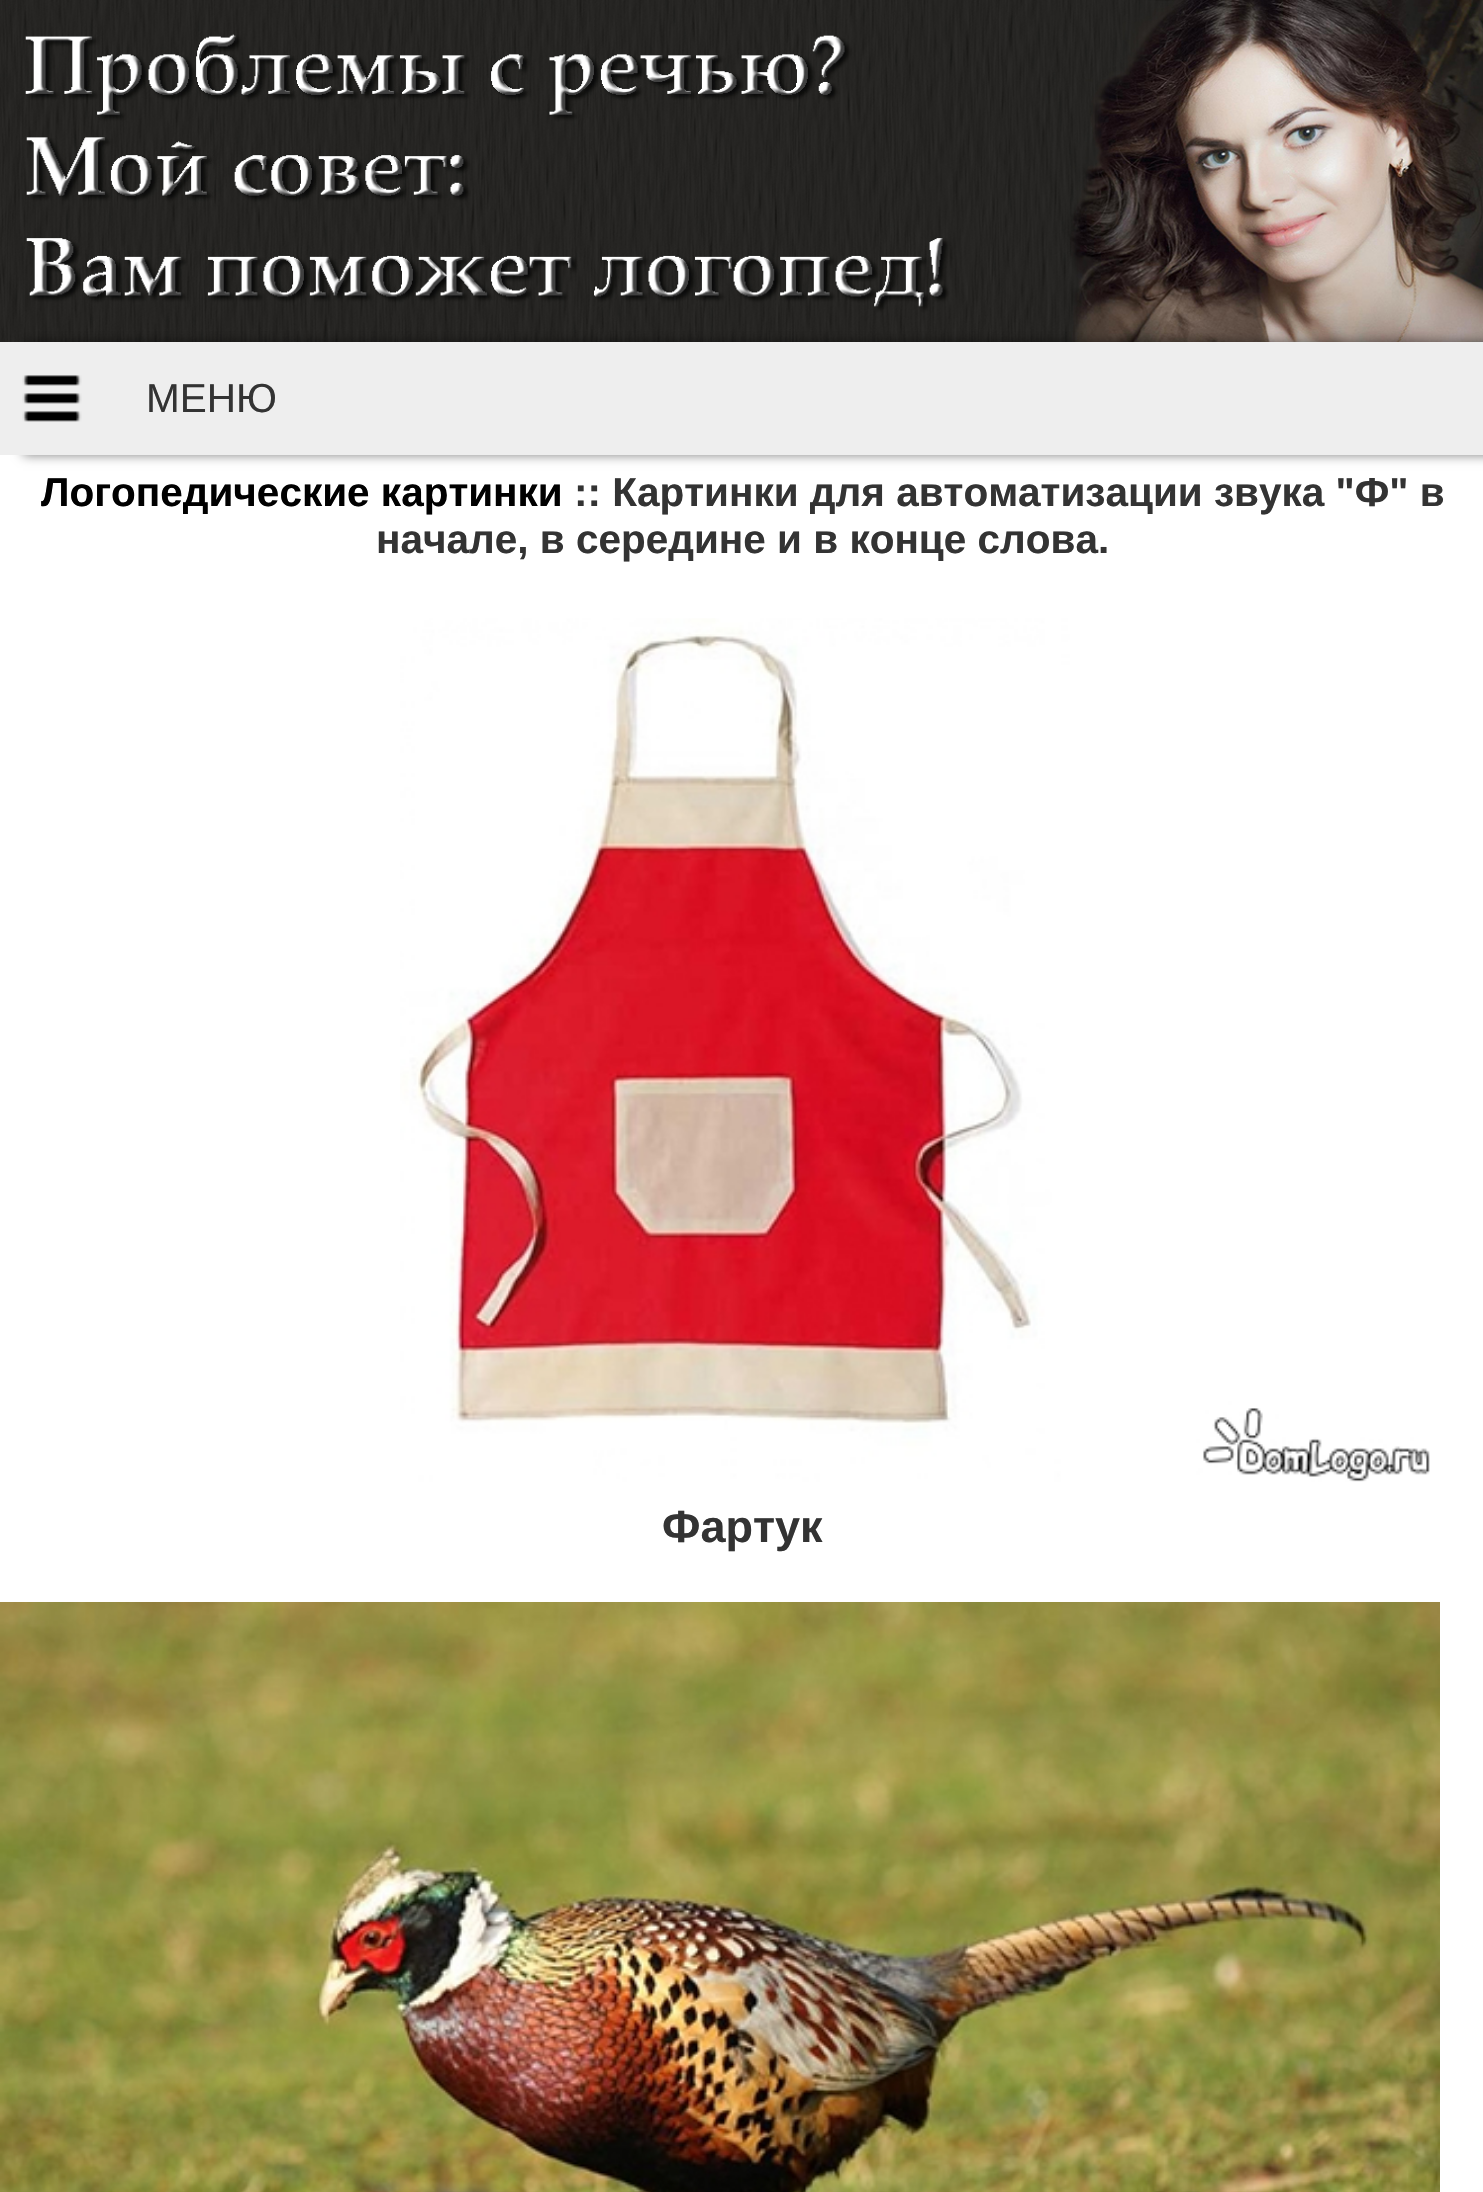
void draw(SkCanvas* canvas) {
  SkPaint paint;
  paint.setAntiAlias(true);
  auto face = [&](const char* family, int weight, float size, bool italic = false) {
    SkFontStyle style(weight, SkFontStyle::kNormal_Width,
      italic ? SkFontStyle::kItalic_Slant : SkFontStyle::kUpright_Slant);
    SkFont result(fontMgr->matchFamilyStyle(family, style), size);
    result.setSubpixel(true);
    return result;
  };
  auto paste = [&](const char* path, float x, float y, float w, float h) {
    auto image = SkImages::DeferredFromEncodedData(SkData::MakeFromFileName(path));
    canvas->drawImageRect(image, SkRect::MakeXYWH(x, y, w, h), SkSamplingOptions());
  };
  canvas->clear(0xffffffff);
  paste("img/1.png", 0, 0, 1483, 342);
  paint.setColor(0x80000000);
  paint.setMaskFilter(SkMaskFilter::MakeBlur(kNormal_SkBlurStyle, 5.5f));
  canvas->drawRect(SkRect::MakeXYWH(23, 342, 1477, 113), paint);
  paint.setMaskFilter(nullptr);
  paint.setColor(0xffeeeeee);
  canvas->drawRect(SkRect::MakeXYWH(0, 342, 1483, 113), paint);
  paste("img/2.png", 22, 375, 60, 47);
  paste("img/3.png", 400, 618, 1030, 864);
  paste("img/4.png", 0, 1602, 1440, 590);
  auto f0 = face("Liberation Sans", 400, 40.5f);
  paint.setColor(0xff333333);
  canvas->drawString("МЕНЮ", 146, 412, f0, paint);
  auto f1 = face("Liberation Sans", 700, 40.5f);
  paint.setColor(0xff000000);
  canvas->drawString("Логопедические картинки", 41, 506, f1, paint);
  paint.setColor(0xff333333);
  canvas->drawString(":: Картинки для автоматизации звука \"Ф\" в", 574, 506, f1, paint);
  canvas->drawString("начале, в середине и в конце слова.", 376, 553, f1, paint);
  auto f2 = face("Liberation Sans", 700, 45);
  canvas->drawString("Фартук", 662, 1542, f2, paint);
}
